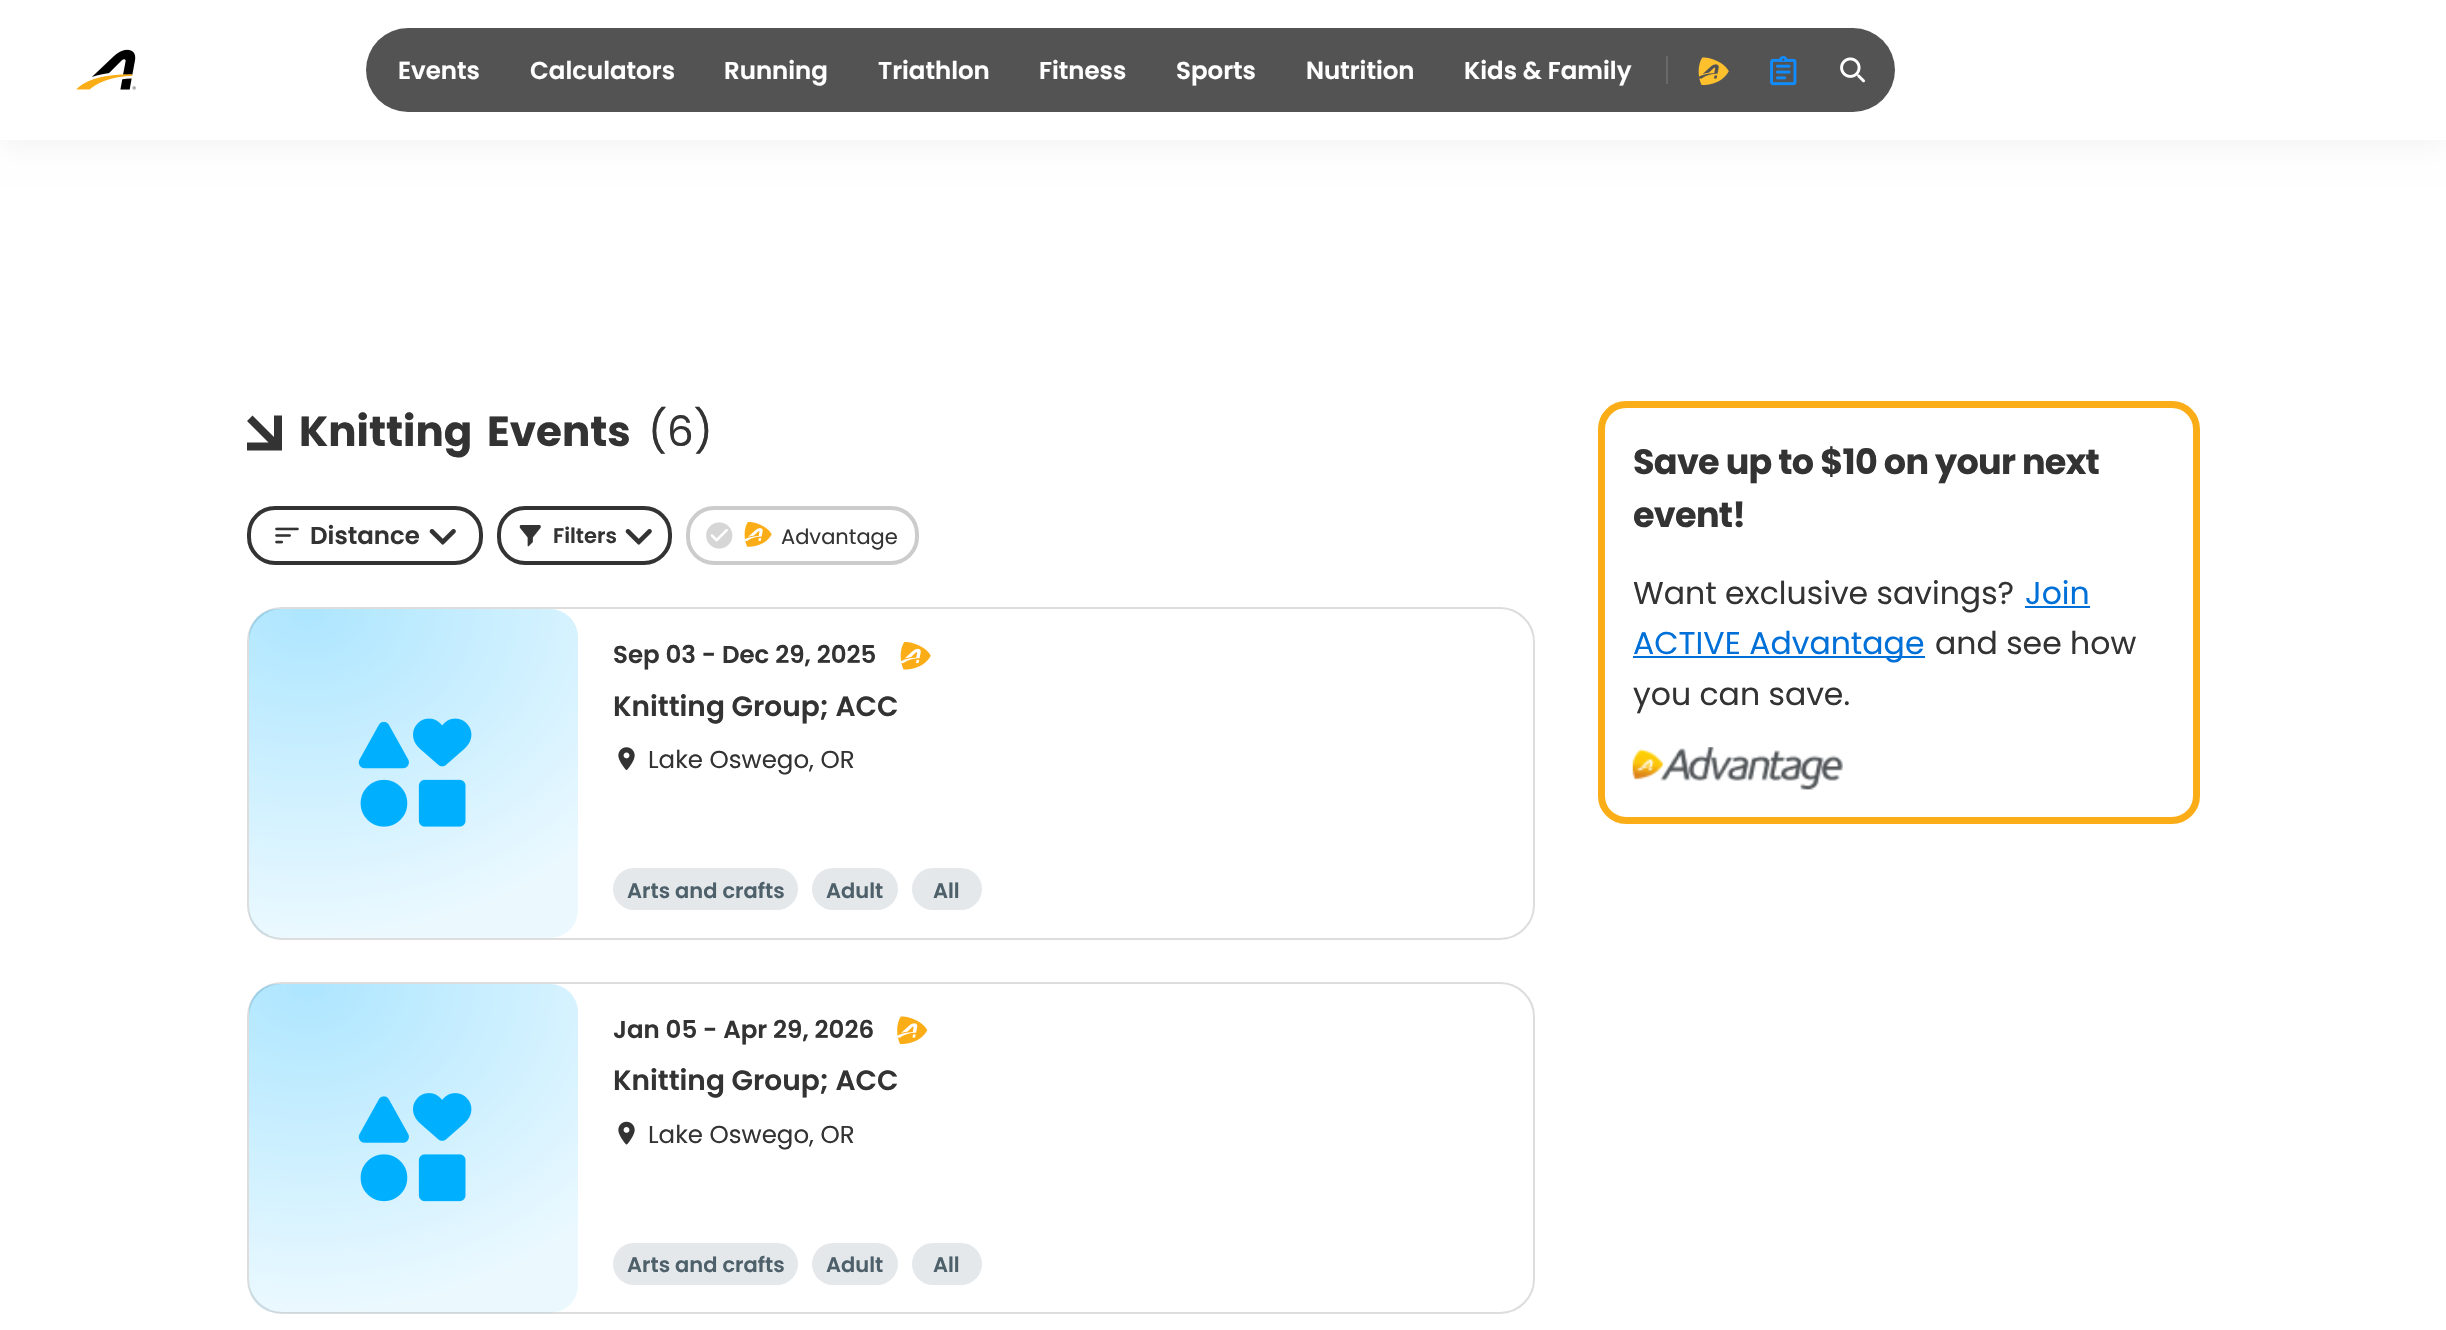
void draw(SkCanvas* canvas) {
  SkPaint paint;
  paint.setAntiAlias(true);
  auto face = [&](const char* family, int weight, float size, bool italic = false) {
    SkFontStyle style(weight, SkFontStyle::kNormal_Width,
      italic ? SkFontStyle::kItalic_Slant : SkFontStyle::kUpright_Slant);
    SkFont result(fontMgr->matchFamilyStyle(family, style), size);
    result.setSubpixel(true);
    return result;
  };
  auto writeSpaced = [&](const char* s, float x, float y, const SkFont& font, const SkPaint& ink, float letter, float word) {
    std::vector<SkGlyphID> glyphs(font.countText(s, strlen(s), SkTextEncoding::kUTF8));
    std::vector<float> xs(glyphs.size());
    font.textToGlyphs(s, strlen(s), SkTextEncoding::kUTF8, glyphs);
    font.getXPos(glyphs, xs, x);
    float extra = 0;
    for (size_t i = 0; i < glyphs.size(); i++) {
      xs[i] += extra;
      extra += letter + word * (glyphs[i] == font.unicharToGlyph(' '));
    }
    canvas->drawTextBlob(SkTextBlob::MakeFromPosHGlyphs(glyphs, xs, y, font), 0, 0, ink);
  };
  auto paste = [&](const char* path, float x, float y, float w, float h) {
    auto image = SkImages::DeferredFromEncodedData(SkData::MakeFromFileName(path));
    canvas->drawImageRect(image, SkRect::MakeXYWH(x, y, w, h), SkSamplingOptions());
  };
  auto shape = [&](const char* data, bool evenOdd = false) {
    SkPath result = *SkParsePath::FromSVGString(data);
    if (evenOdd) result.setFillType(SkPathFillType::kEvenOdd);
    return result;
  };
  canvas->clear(0xffffffff);
  paint.setColor(0x0d000000);
  paint.setMaskFilter(SkMaskFilter::MakeBlur(kNormal_SkBlurStyle, 14));
  canvas->drawRect(SkRect::MakeXYWH(0, 4, 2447, 140), paint);
  paint.setMaskFilter(nullptr);
  paint.setColor(0xffffffff);
  canvas->drawRect(SkRect::MakeXYWH(0, 0, 2446, 140), paint);
  paste("img/1.png", 76, 49, 60, 41);
  paint.setColor(0xff535353);
  canvas->drawRoundRect(SkRect::MakeXYWH(366, 28, 1529, 84), 42, 42, paint);
  paint.setColor(0xff686868);
  canvas->drawRect(SkRect::MakeXYWH(1666, 56, 2, 28), paint);
  paste("img/2.png", 1698, 57, 31, 29);
  paste("img/3.png", 1770, 56, 27, 30);
  paste("img/4.png", 1840, 57, 25, 26);
  paint.setColor(0xff333333);
  canvas->drawPath(shape("M282 415.5V450.5H247V442.5H268.5L247 421L252.5 415.5L274 437V415.5Z"), paint);
  paint.setStroke(true);
  paint.setStrokeWidth(4);
  canvas->drawRoundRect(SkRect::MakeXYWH(249, 508, 232, 55), 26, 26, paint);
  paste("img/5.png", 275, 527, 24, 17);
  paste("img/6.png", 429, 529, 27, 16);
  canvas->drawRoundRect(SkRect::MakeXYWH(499, 508, 171, 55), 26, 26, paint);
  paste("img/7.png", 519, 525, 22, 22);
  paste("img/6.png", 625, 529, 27, 16);
  paint.setColor(0xffcccccc);
  canvas->drawRoundRect(SkRect::MakeXYWH(688, 508, 229, 55), 26, 26, paint);
  paste("img/8.png", 706, 522, 27, 27);
  paste("img/9.png", 744, 522, 28, 25);
  paint.setStrokeWidth(2);
  paint.setColor(0xffdddddd);
  canvas->drawRoundRect(SkRect::MakeXYWH(248, 608, 1286, 331), 34, 34, paint);
  paint.setStroke(false);
  {
    const SkColor colors[] = {0x5200b0ff, 0x1400b0ff};
    const float stops[] = {0, 1};
    SkMatrix m = SkMatrix::Translate(308, 609).preScale(405, 329);
    paint.setShader(SkGradientShader::MakeRadial({0, 0}, 1, colors, stops, 2, SkTileMode::kClamp, 0, &m));
    paint.setAlpha(255);
  }
  canvas->drawRoundRect(SkRect::MakeXYWH(249, 609, 329, 329), 28, 28, paint);
  paste("img/10.png", 358, 718, 114, 109);
  paste("img/11.png", 900, 642, 31, 28);
  paste("img/12.png", 618, 747, 17, 23);
  paint.setShader(nullptr);
  paint.setColor(0xffe4e8eb);
  canvas->drawRoundRect(SkRect::MakeXYWH(613, 868, 185, 42), 21, 21, paint);
  canvas->drawRoundRect(SkRect::MakeXYWH(812, 868, 86, 42), 21, 21, paint);
  canvas->drawRoundRect(SkRect::MakeXYWH(912, 868, 70, 42), 21, 21, paint);
  paint.setStroke(true);
  paint.setColor(0xffdddddd);
  canvas->drawRoundRect(SkRect::MakeXYWH(248, 983, 1286, 330), 34, 34, paint);
  paint.setStroke(false);
  {
    const SkColor colors[] = {0x5200b0ff, 0x1400b0ff};
    const float stops[] = {0, 1};
    SkMatrix m = SkMatrix::Translate(308, 984).preScale(405, 329);
    paint.setShader(SkGradientShader::MakeRadial({0, 0}, 1, colors, stops, 2, SkTileMode::kClamp, 0, &m));
    paint.setAlpha(255);
  }
  canvas->drawRoundRect(SkRect::MakeXYWH(249, 984, 329, 329), 28, 28, paint);
  paste("img/13.png", 358, 1093, 114, 109);
  paste("img/14.png", 897, 1016, 31, 29);
  paste("img/15.png", 618, 1121, 17, 24);
  paint.setShader(nullptr);
  paint.setColor(0xffe4e8eb);
  canvas->drawRoundRect(SkRect::MakeXYWH(613, 1243, 185, 42), 21, 21, paint);
  canvas->drawRoundRect(SkRect::MakeXYWH(812, 1243, 86, 42), 21, 21, paint);
  canvas->drawRoundRect(SkRect::MakeXYWH(912, 1243, 70, 42), 21, 21, paint);
  paint.setStroke(true);
  paint.setStrokeWidth(7);
  paint.setColor(0xfffbad18);
  canvas->drawRoundRect(SkRect::MakeXYWH(1601.5f, 404.5f, 595, 416), 24.5f, 24.5f, paint);
  paint.setStroke(false);
  paint.setColor(0xff0070d9);
  canvas->drawRect(SkRect::MakeXYWH(2025, 606, 65, 2), paint);
  canvas->drawRect(SkRect::MakeXYWH(1633, 656, 292, 2), paint);
  paste("img/16.png", 1632, 747, 211, 43);
  auto f0 = face("Poppins", 600, 24.5f);
  paint.setColor(0xffffffff);
  {
    const struct { const char* s; float x, y; } items[] = {
      {"Events", 398, 79},
      {"Calculators", 530, 79},
      {"Running", 724, 79},
      {"Triathlon", 878, 79},
      {"Fitness", 1039, 79},
      {"Sports", 1176, 79},
      {"Nutrition", 1306, 79},
      {"Kids & Family", 1464, 79},
    };
    for (auto [s, x, y] : items) {
      canvas->drawString(s, x, y, f0, paint);
    }
  }
  auto f1 = face("Poppins", 700, 42);
  paint.setColor(0xff333333);
  canvas->drawString("Knitting", 299, 446, f1, paint);
  canvas->drawString("Events", 487, 446, f1, paint);
  auto f2 = face("Poppins", 400, 42);
  canvas->drawString("(6)", 648, 446, f2, paint);
  canvas->drawString("Distance", 310, 544, f0, paint);
  auto f3 = face("Poppins", 600, 21);
  canvas->drawString("Filters", 553, 543, f3, paint);
  auto f4 = face("Poppins", 400, 21);
  canvas->drawString("Advantage", 781, 544, f4, paint);
  canvas->drawString("Sep 03 - Dec 29, 2025", 613, 663, f0, paint);
  auto f5 = face("Poppins", 600, 28);
  canvas->drawString("Knitting Group; ACC", 613, 716, f5, paint);
  auto f6 = face("Poppins", 400, 24.5f);
  canvas->drawString("Lake Oswego, OR", 648, 768, f6, paint);
  paint.setColor(0xff4e606a);
  {
    const struct { const char* s; float x, y; } items[] = {
      {"Arts and crafts", 627, 898},
      {"Adult", 826, 898},
      {"All", 933, 898},
    };
    for (auto [s, x, y] : items) {
      canvas->drawString(s, x, y, f3, paint);
    }
  }
  paint.setColor(0xff333333);
  canvas->drawString("Jan 05 - Apr 29, 2026", 613, 1038, f0, paint);
  canvas->drawString("Knitting Group; ACC", 613, 1090, f5, paint);
  canvas->drawString("Lake Oswego, OR", 648, 1143, f6, paint);
  paint.setColor(0xff4e606a);
  {
    const struct { const char* s; float x, y; } items[] = {
      {"Arts and crafts", 627, 1272},
      {"Adult", 826, 1272},
      {"All", 933, 1272},
    };
    for (auto [s, x, y] : items) {
      canvas->drawString(s, x, y, f3, paint);
    }
  }
  auto f7 = face("Poppins", 700, 35);
  paint.setColor(0xff333333);
  writeSpaced("Save up to $10 on your next", 1633, 474, f7, paint, -0.7f, 0);
  writeSpaced("event!", 1633, 527, f7, paint, -0.7f, 0);
  auto f8 = face("Poppins", 400, 31.5f);
  canvas->drawString("Want exclusive savings?", 1633, 604, f8, paint);
  paint.setColor(0xff0070d9);
  canvas->drawString("Join", 2025, 604, f8, paint);
  canvas->drawString("ACTIVE Advantage", 1633, 654, f8, paint);
  paint.setColor(0xff333333);
  canvas->drawString("and see how", 1935, 654, f8, paint);
  canvas->drawString("you can save.", 1633, 705, f8, paint);
}
